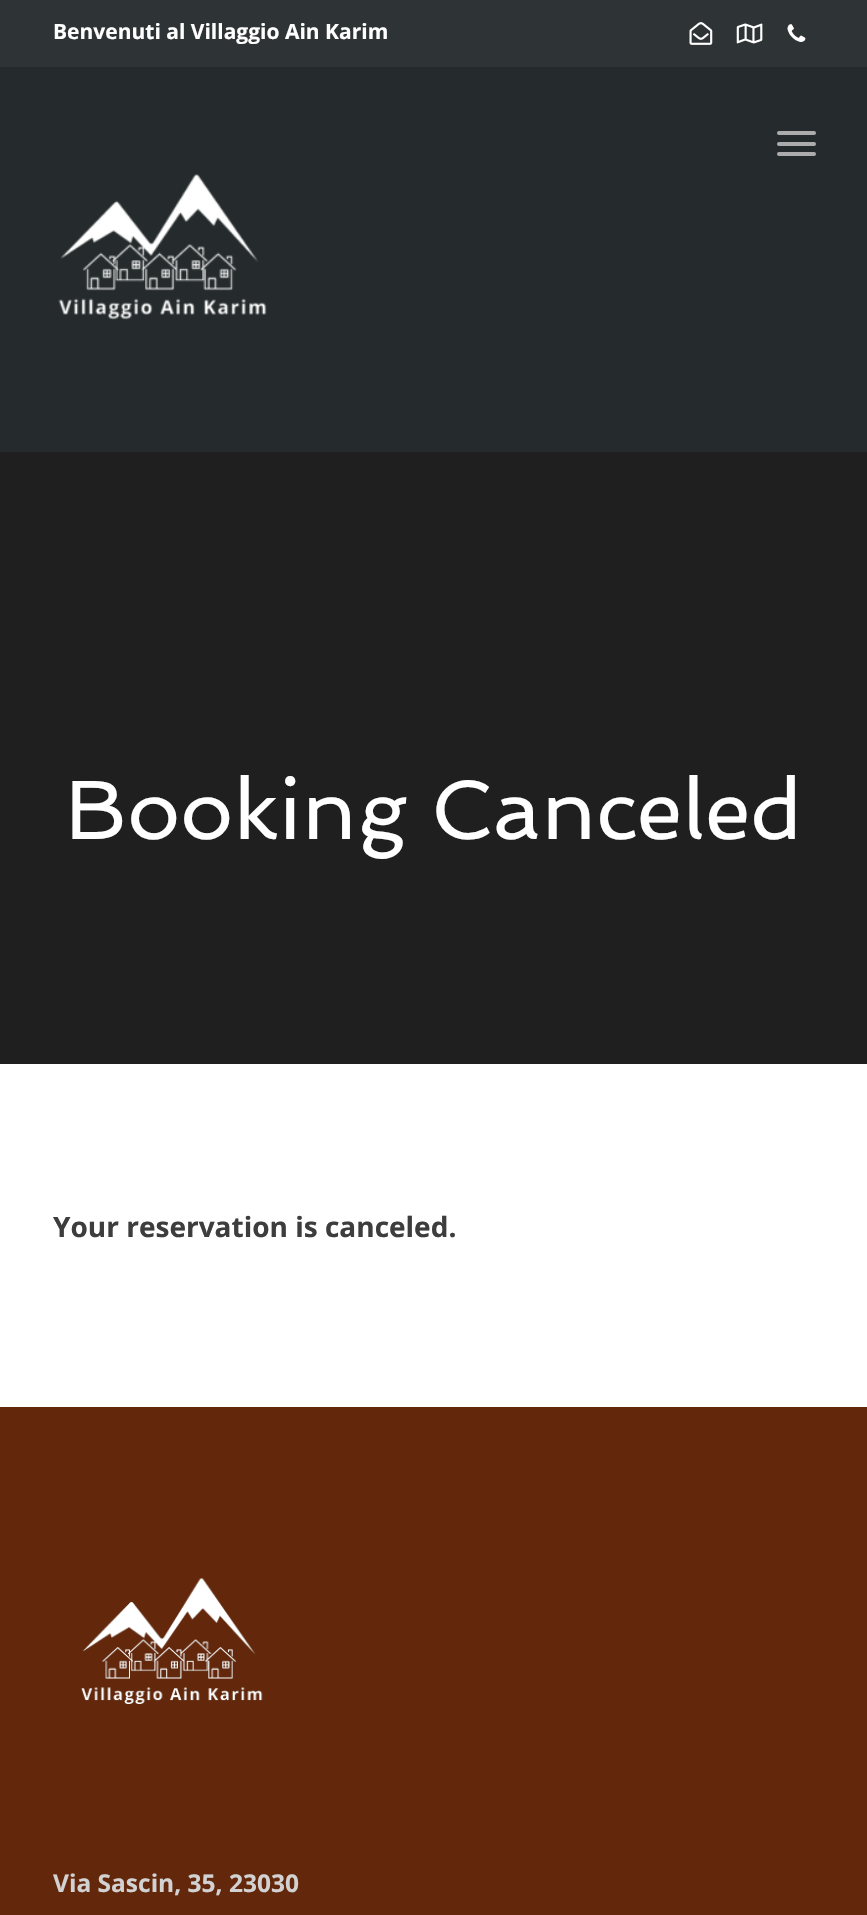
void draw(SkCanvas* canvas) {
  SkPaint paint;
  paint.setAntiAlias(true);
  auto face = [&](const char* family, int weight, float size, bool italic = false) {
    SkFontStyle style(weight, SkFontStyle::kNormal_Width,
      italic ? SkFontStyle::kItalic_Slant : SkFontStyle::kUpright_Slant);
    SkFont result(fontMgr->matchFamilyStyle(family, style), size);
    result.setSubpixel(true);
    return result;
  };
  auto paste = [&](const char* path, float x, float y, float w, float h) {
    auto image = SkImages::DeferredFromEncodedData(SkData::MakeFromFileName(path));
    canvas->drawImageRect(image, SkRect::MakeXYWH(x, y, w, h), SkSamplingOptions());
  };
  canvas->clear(0xffffffff);
  paint.setColor(0xff252b2d);
  canvas->drawRect(SkRect::MakeXYWH(0, 67, 867, 385), paint);
  paint.setColor(0xff2e3335);
  canvas->drawRect(SkRect::MakeXYWH(0, 0, 867, 67), paint);
  paste("img/1.png", 689, 22, 24, 23);
  paste("img/2.png", 736, 23, 27, 21);
  paste("img/3.png", 787, 24, 19, 18);
  paint.setColor(0xffacacac);
  canvas->drawRoundRect(SkRect::MakeXYWH(777, 131, 39, 4), 2, 2, paint);
  canvas->drawRoundRect(SkRect::MakeXYWH(777, 142, 39, 4), 2, 2, paint);
  canvas->drawRoundRect(SkRect::MakeXYWH(777, 152, 39, 4), 2, 2, paint);
  paste("img/4.png", 58, 174, 209, 146);
  paint.setColor(0xff1f1f1f);
  canvas->drawRect(SkRect::MakeXYWH(0, 452, 867, 612), paint);
  paint.setColor(0xff63280c);
  canvas->drawRect(SkRect::MakeXYWH(0, 1407, 867, 508), paint);
  paste("img/5.png", 81, 1578, 182, 126);
  auto f0 = face("Open Sans", 700, 21);
  paint.setColor(0xffffffff);
  canvas->drawString("Benvenuti al Villaggio Ain Karim", 53, 39, f0, paint);
  auto f1 = face("Spinnaker", 400, 84);
  canvas->drawString("Booking Canceled", 65, 839, f1, paint);
  auto f2 = face("Open Sans", 700, 28);
  paint.setColor(0xff3d3d3d);
  canvas->drawString("Your reservation is canceled.", 53, 1237, f2, paint);
  auto f3 = face("Open Sans", 700, 24.5f);
  paint.setColor(0xffd2d2d2);
  canvas->drawString("Via Sascin, 35, 23030", 53, 1892, f3, paint);
}
